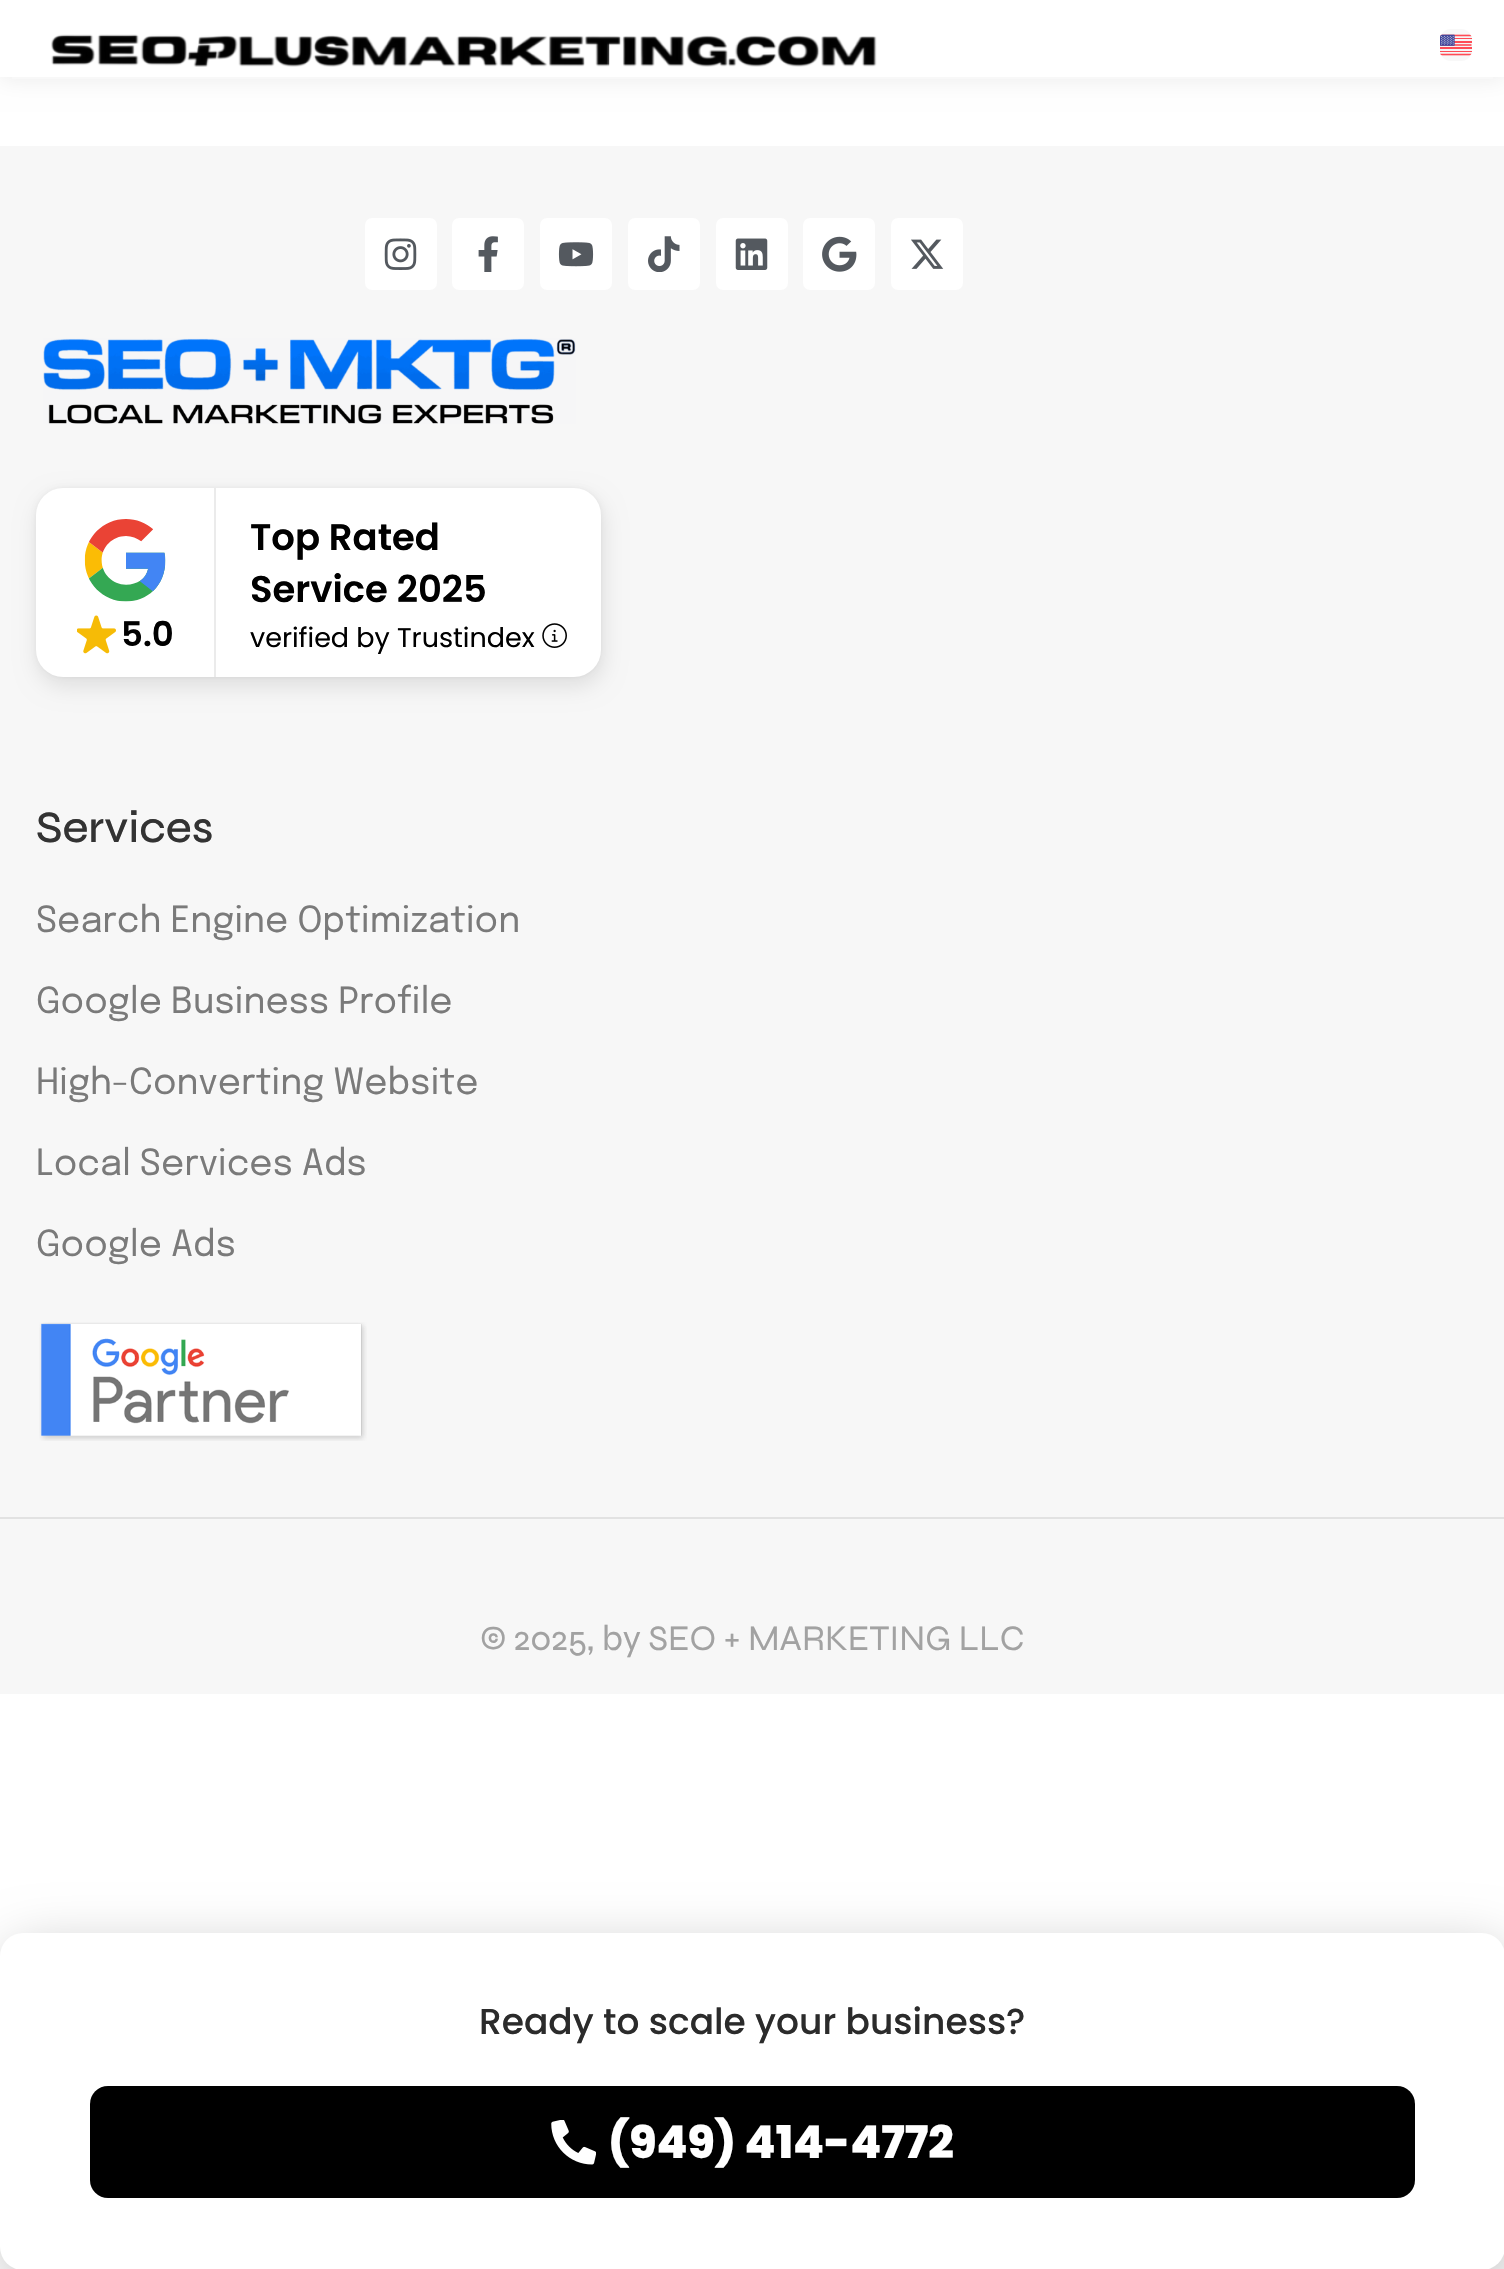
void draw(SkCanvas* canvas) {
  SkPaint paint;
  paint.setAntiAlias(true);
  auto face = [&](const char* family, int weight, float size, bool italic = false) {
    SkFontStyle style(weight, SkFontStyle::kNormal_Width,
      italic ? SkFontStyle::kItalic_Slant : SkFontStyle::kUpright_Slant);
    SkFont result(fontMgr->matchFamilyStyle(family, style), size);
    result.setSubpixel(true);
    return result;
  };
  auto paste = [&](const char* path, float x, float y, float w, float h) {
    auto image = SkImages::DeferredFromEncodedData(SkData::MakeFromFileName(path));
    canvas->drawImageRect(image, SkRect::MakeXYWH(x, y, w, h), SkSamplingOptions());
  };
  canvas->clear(0xffffffff);
  paint.setColor(0x14000000);
  paint.setMaskFilter(SkMaskFilter::MakeBlur(kNormal_SkBlurStyle, 11));
  canvas->drawRect(SkRect::MakeXYWH(0, 0, 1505, 79), paint);
  paint.setMaskFilter(nullptr);
  paint.setColor(0xffffffff);
  canvas->drawRect(SkRect::MakeXYWH(0, 0, 1504, 77), paint);
  paint.setColor(0xfff8f8f8);
  canvas->drawRect(SkRect::MakeXYWH(12, 77, 1481, 2), paint);
  paste("img/1.png", 51, 34, 826, 33);
  canvas->drawRoundRect(SkRect::MakeXYWH(1440, 29, 32, 32), 11, 11, paint);
  paste("img/2.png", 1440, 34, 32, 22);
  paint.setColor(0xfff7f7f7);
  canvas->drawRect(SkRect::MakeXYWH(0, 146, 1504, 1548), paint);
  paint.setColor(0xffe2e2e2);
  canvas->drawRect(SkRect::MakeXYWH(0, 1517, 1504, 2), paint);
  paint.setColor(0xffffffff);
  canvas->drawRoundRect(SkRect::MakeXYWH(365, 218, 72, 72), 7, 7, paint);
  paste("img/3.png", 384, 238, 33, 32);
  canvas->drawRoundRect(SkRect::MakeXYWH(452, 218, 72, 72), 7, 7, paint);
  paste("img/4.png", 478, 236, 20, 36);
  canvas->drawRoundRect(SkRect::MakeXYWH(540, 218, 72, 72), 7, 7, paint);
  paste("img/5.png", 558, 242, 36, 25);
  canvas->drawRoundRect(SkRect::MakeXYWH(628, 218, 72, 72), 7, 7, paint);
  paste("img/6.png", 648, 236, 32, 36);
  canvas->drawRoundRect(SkRect::MakeXYWH(716, 218, 72, 72), 7, 7, paint);
  paste("img/7.png", 735, 238, 33, 32);
  canvas->drawRoundRect(SkRect::MakeXYWH(803, 218, 72, 72), 7, 7, paint);
  paste("img/8.png", 822, 236, 35, 36);
  canvas->drawRoundRect(SkRect::MakeXYWH(891, 218, 72, 72), 7, 7, paint);
  paste("img/9.png", 911, 239, 33, 30);
  paste("img/10.png", 43, 338, 533, 86);
  paint.setColor(0x0d000000);
  paint.setMaskFilter(SkMaskFilter::MakeBlur(kNormal_SkBlurStyle, 2));
  canvas->drawRoundRect(SkRect::MakeXYWH(36, 488, 565, 189), 27, 27, paint);
  paint.setMaskFilter(nullptr);
  paint.setColor(0x1a000000);
  paint.setMaskFilter(SkMaskFilter::MakeBlur(kNormal_SkBlurStyle, 11));
  canvas->drawRoundRect(SkRect::MakeXYWH(38, 497, 565, 189), 27, 27, paint);
  paint.setMaskFilter(nullptr);
  paint.setColor(0xffffffff);
  canvas->drawRoundRect(SkRect::MakeXYWH(36, 488, 565, 189), 27, 27, paint);
  paint.setColor(0xffebebeb);
  canvas->drawRect(SkRect::MakeXYWH(214, 488, 2, 189), paint);
  paste("img/11.png", 84, 519, 82, 83);
  paste("img/12.png", 77, 615, 39, 39);
  paste("img/13.png", 542, 623, 25, 25);
  paste("img/14.png", 39, 1322, 328, 119);
  paint.setColor(0x33000000);
  paint.setMaskFilter(SkMaskFilter::MakeBlur(kNormal_SkBlurStyle, 26));
  canvas->drawRoundRect(SkRect::MakeXYWH(-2, 1944, 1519, 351), 43, 43, paint);
  paint.setMaskFilter(nullptr);
  paint.setColor(0xffffffff);
  canvas->drawRoundRect(SkRect::MakeXYWH(0, 1933, 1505, 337), 23, 23, paint);
  paint.setColor(0xff000000);
  canvas->drawRoundRect(SkRect::MakeXYWH(90, 2086, 1325, 112), 18, 18, paint);
  paste("img/15.png", 551, 2120, 45, 45);
  auto f0 = face("Poppins", 600, 34);
  canvas->drawString("5.0", 121, 646, f0, paint);
  auto f1 = face("Poppins", 600, 37);
  canvas->drawString("Top Rated", 250, 550, f1, paint);
  canvas->drawString("Service 2025", 250, 602, f1, paint);
  auto f2 = face("Poppins", 400, 27);
  canvas->drawString("verified by Trustindex", 250, 647, f2, paint);
  auto f3 = face("Syne", 500, 45);
  paint.setColor(0xff333333);
  canvas->drawString("Services", 36, 842, f3, paint);
  auto f4 = face("Epilogue", 400, 36);
  paint.setColor(0xff7a7a7a);
  {
    const struct { const char* s; float x, y; } items[] = {
      {"Search Engine Optimization", 36, 932},
      {"Google Business Profile", 36, 1013},
      {"High-Converting Website", 36, 1094},
      {"Local Services Ads", 36, 1175},
      {"Google Ads", 36, 1256},
    };
    for (auto [s, x, y] : items) {
      canvas->drawString(s, x, y, f4, paint);
    }
  }
  auto f5 = face("Syne", 400, 36);
  paint.setColor(0xffa2a2a2);
  canvas->drawString("© 2025, by SEO + MARKETING LLC", 480, 1650, f5, paint);
  auto f6 = face("Poppins", 500, 36);
  paint.setColor(0xff2b2b2b);
  canvas->drawString("Ready to scale your business?", 479, 2034, f6, paint);
  auto f7 = face("Poppins", 800, 45);
  paint.setColor(0xffffffff);
  canvas->drawString("(949) 414-4772", 608, 2158, f7, paint);
}
